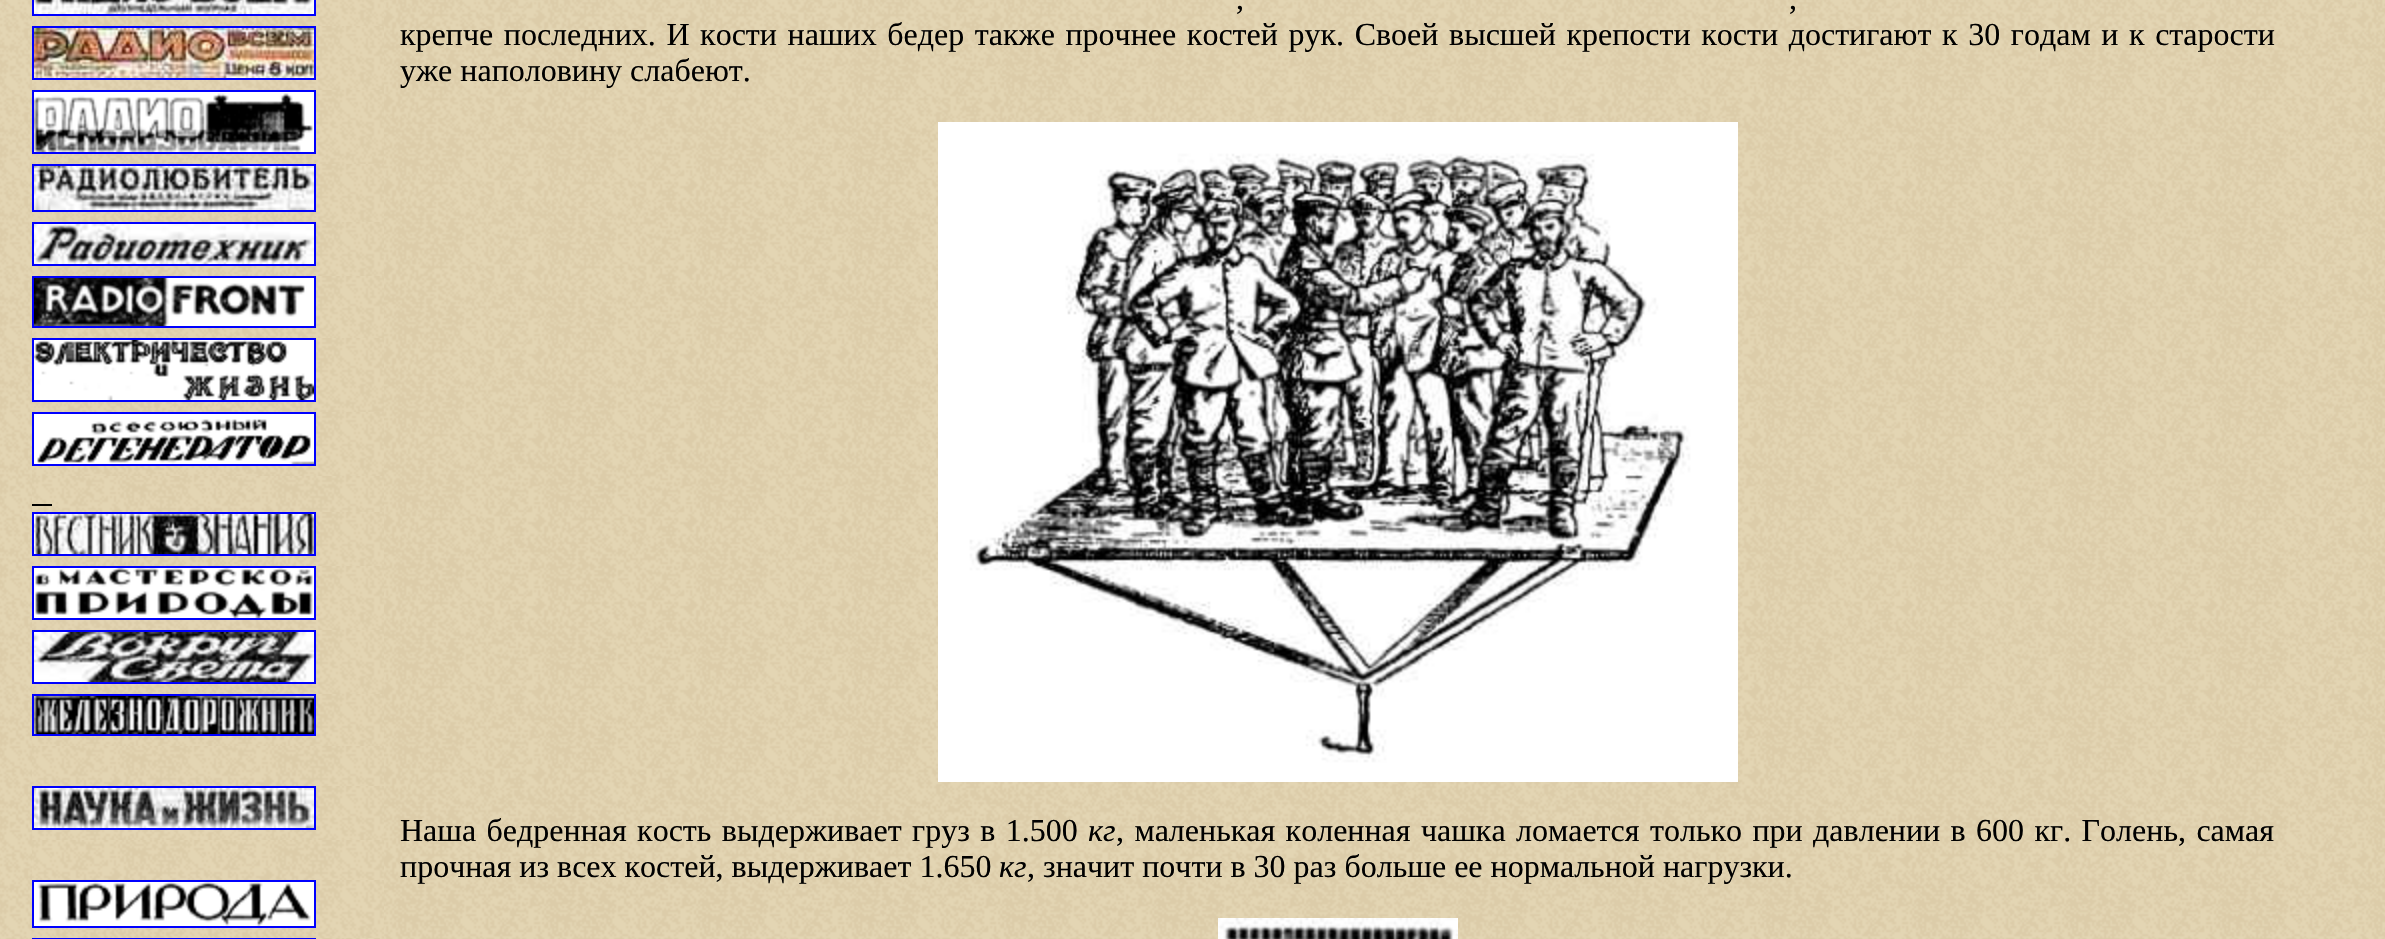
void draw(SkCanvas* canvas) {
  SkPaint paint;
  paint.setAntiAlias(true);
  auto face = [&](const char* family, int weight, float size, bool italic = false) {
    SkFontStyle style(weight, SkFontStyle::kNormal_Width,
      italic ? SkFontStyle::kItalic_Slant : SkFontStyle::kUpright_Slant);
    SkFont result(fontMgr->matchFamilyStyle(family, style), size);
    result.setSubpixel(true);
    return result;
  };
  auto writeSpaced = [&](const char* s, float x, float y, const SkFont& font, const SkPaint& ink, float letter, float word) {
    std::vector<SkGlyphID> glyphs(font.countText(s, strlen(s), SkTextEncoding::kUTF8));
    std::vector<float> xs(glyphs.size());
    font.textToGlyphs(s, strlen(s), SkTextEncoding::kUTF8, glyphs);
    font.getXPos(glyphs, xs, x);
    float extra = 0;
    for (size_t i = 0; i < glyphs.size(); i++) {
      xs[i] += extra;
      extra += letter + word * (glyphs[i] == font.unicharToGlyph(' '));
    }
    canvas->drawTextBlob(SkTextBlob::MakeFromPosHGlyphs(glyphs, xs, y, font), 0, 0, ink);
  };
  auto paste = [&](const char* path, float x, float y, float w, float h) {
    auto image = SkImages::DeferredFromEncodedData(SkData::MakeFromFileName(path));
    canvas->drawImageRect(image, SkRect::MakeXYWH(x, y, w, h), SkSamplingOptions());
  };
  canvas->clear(0xffffffff);
  paste("img/1.png", 0, 0, 2385, 939);
  paste("img/2.png", 32, 0, 352, 26);
  paint.setStroke(true);
  paint.setStrokeWidth(2);
  paint.setColor(0xff0000ff);
  canvas->drawRect(SkRect::MakeXYWH(33, -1, 282, 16), paint);
  paste("img/3.png", 34, 0, 280, 14);
  paste("img/4.png", 32, 26, 352, 64);
  canvas->drawRect(SkRect::MakeXYWH(33, 27, 282, 52), paint);
  paste("img/5.png", 34, 28, 280, 50);
  paste("img/6.png", 32, 90, 352, 74);
  canvas->drawRect(SkRect::MakeXYWH(33, 91, 282, 62), paint);
  paste("img/7.png", 34, 92, 280, 60);
  paste("img/8.png", 32, 164, 352, 58);
  canvas->drawRect(SkRect::MakeXYWH(33, 165, 282, 46), paint);
  paste("img/9.png", 34, 166, 280, 44);
  paste("img/10.png", 32, 222, 352, 54);
  canvas->drawRect(SkRect::MakeXYWH(33, 223, 282, 42), paint);
  paste("img/11.png", 34, 224, 280, 40);
  paste("img/12.png", 32, 276, 352, 62);
  canvas->drawRect(SkRect::MakeXYWH(33, 277, 282, 50), paint);
  paste("img/13.png", 34, 278, 280, 48);
  paste("img/6.png", 32, 338, 352, 74);
  canvas->drawRect(SkRect::MakeXYWH(33, 339, 282, 62), paint);
  paste("img/14.png", 34, 340, 280, 60);
  paste("img/4.png", 32, 412, 352, 64);
  canvas->drawRect(SkRect::MakeXYWH(33, 413, 282, 52), paint);
  paste("img/15.png", 34, 414, 280, 50);
  paste("img/16.png", 32, 476, 352, 36);
  paint.setStroke(false);
  paint.setColor(0xff000000);
  canvas->drawRect(SkRect::MakeXYWH(32, 504, 20, 2), paint);
  paste("img/10.png", 32, 512, 352, 54);
  paint.setStroke(true);
  paint.setColor(0xff0000ff);
  canvas->drawRect(SkRect::MakeXYWH(33, 513, 282, 42), paint);
  paste("img/17.png", 34, 514, 280, 40);
  paste("img/4.png", 32, 566, 352, 64);
  canvas->drawRect(SkRect::MakeXYWH(33, 567, 282, 52), paint);
  paste("img/18.png", 34, 568, 280, 50);
  paste("img/4.png", 32, 630, 352, 64);
  canvas->drawRect(SkRect::MakeXYWH(33, 631, 282, 52), paint);
  paste("img/19.png", 34, 632, 280, 50);
  paste("img/20.png", 32, 694, 352, 52);
  canvas->drawRect(SkRect::MakeXYWH(33, 695, 282, 40), paint);
  paste("img/21.png", 34, 696, 280, 38);
  paste("img/22.png", 32, 746, 352, 40);
  paste("img/10.png", 32, 786, 352, 54);
  canvas->drawRect(SkRect::MakeXYWH(33, 787, 282, 42), paint);
  paste("img/23.png", 34, 788, 280, 40);
  paste("img/22.png", 32, 840, 352, 40);
  paste("img/8.png", 32, 880, 352, 58);
  canvas->drawRect(SkRect::MakeXYWH(33, 881, 282, 46), paint);
  paste("img/24.png", 34, 882, 280, 44);
  paste("img/25.png", 316, 938, 64, 1);
  canvas->drawRect(SkRect::MakeXYWH(33, 939, 282, 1), paint);
  paste("img/26.png", 938, 122, 800, 660);
  paste("img/27.png", 1218, 918, 240, 21);
  auto f0 = face("Liberation Serif", 400, 32);
  paint.setStroke(false);
  paint.setColor(0xff000000);
  writeSpaced(",", 1236, 9, f0, paint, 0, 5);
  writeSpaced(",", 1789, 9, f0, paint, 0, 5);
  writeSpaced("крепче последних. И кости наших бедер также прочнее костей рук. Своей высшей крепости кости достигают к 30 годам и к старости", 400, 45, f0, paint, 0, 2.6f);
  canvas->drawString("уже наполовину слабеют.", 400, 81, f0, paint);
  writeSpaced("Наша бедренная кость выдерживает груз в 1.500", 400, 841, f0, paint, 0, 2.4f);
  auto f1 = face("Liberation Serif", 400, 32, true);
  canvas->drawString("кг", 1088, 841, f1, paint);
  writeSpaced(", маленькая коленная чашка ломается только при давлении в 600 кг. Голень, самая", 1116, 841, f0, paint, 0, 2.4f);
  canvas->drawString("прочная из всех костей, выдерживает 1.650", 400, 877, f0, paint);
  canvas->drawString("кг", 999, 877, f1, paint);
  canvas->drawString(", значит почти в 30 раз больше ее нормальной нагрузки.", 1027, 877, f0, paint);
}
